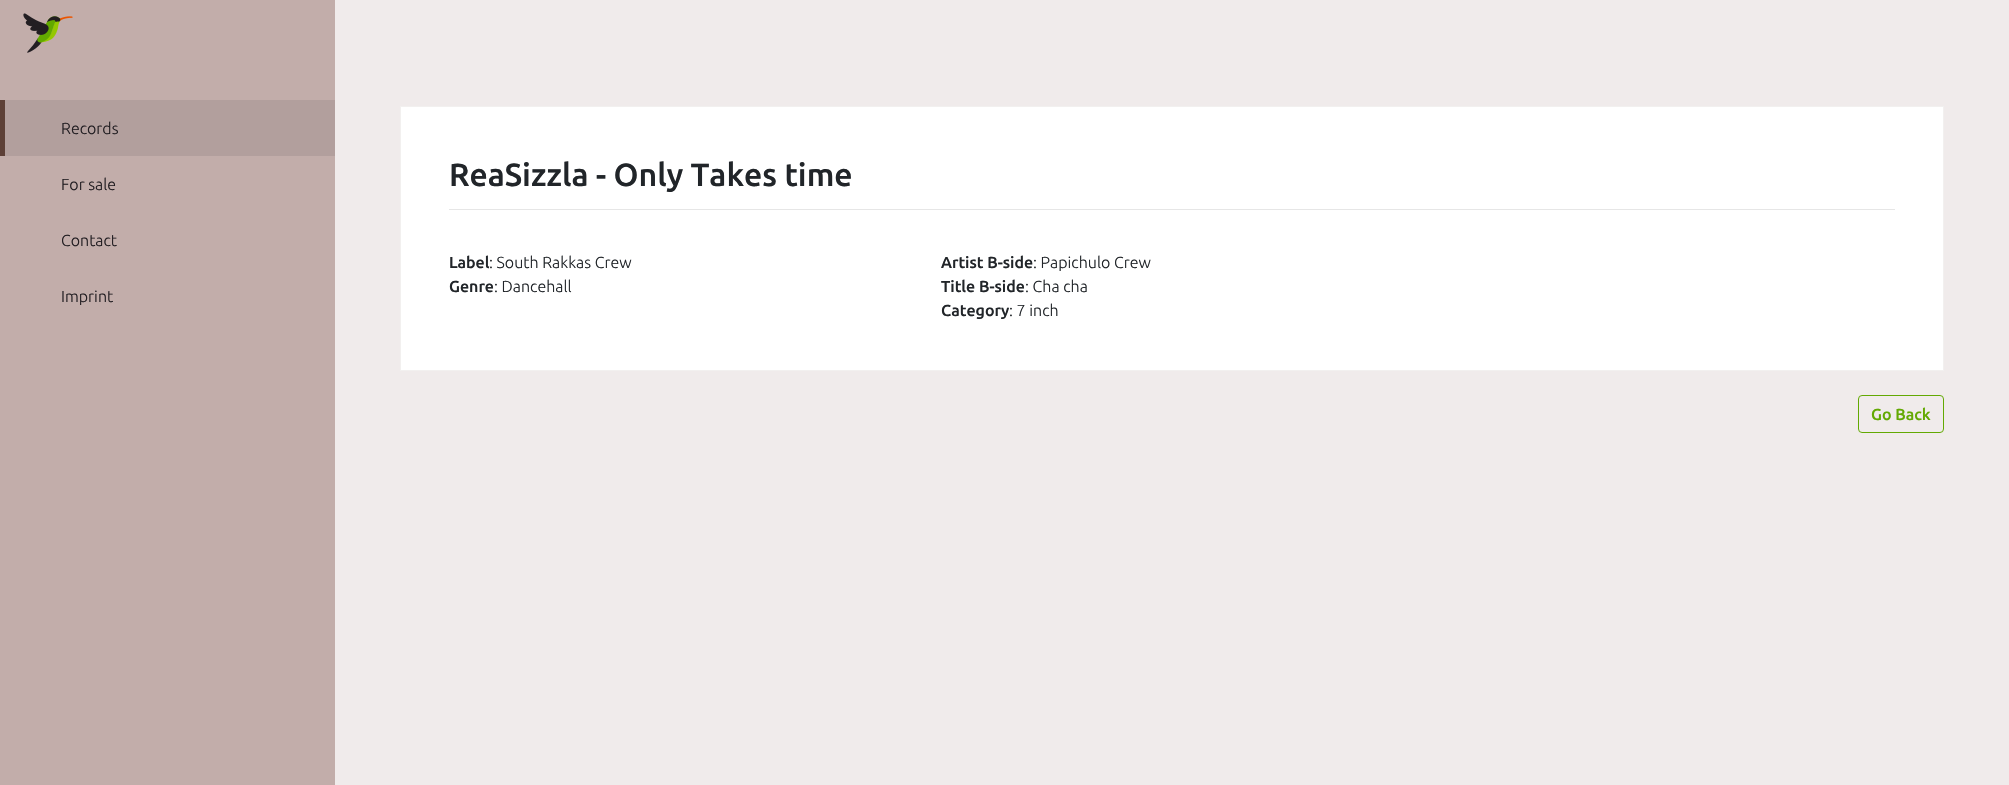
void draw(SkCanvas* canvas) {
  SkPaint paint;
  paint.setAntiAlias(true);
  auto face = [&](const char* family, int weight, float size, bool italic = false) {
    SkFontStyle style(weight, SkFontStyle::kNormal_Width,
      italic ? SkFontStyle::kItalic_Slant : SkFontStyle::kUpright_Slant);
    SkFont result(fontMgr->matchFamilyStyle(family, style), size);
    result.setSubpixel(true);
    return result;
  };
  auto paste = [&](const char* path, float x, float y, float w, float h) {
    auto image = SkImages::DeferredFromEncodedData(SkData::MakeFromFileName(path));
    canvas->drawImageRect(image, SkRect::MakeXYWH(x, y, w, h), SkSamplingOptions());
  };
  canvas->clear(0xfff0ebeb);
  paint.setColor(0xffc2adaa);
  canvas->drawRect(SkRect::MakeXYWH(0, 0, 335, 785), paint);
  paste("img/1.png", 23, 13, 50, 40);
  paint.setColor(0xffb29f9d);
  canvas->drawRect(SkRect::MakeXYWH(5, 100, 330, 56), paint);
  paint.setColor(0xff5d4037);
  canvas->drawRect(SkRect::MakeXYWH(0, 100, 5, 56), paint);
  paint.setColor(0xffffffff);
  canvas->drawRect(SkRect::MakeXYWH(400.5f, 106.5f, 1543, 264), paint);
  paint.setStroke(true);
  paint.setStrokeWidth(1);
  paint.setColor(0xfff2f0ef);
  canvas->drawRect(SkRect::MakeXYWH(400.5f, 106.5f, 1543, 264), paint);
  paint.setStroke(false);
  paint.setColor(0xffe6e6e6);
  canvas->drawRect(SkRect::MakeXYWH(449, 209, 1446, 1), paint);
  paint.setStroke(true);
  paint.setColor(0xff63a903);
  canvas->drawRoundRect(SkRect::MakeXYWH(1858.5f, 395.5f, 85, 37), 3.5f, 3.5f, paint);
  auto f0 = face("Ubuntu", 300, 16);
  paint.setStroke(false);
  paint.setColor(0xff221e22);
  {
    const struct { const char* s; float x, y; } items[] = {
      {"Records", 61, 134},
      {"For sale", 61, 190},
      {"Contact", 61, 246},
      {"Imprint", 61, 302},
    };
    for (auto [s, x, y] : items) {
      canvas->drawString(s, x, y, f0, paint);
    }
  }
  auto f1 = face("Ubuntu", 500, 32);
  paint.setColor(0xff212529);
  canvas->drawString("ReaSizzla - Only Takes time", 449, 186, f1, paint);
  auto f2 = face("Ubuntu", 500, 16);
  canvas->drawString("Label", 449, 268, f2, paint);
  canvas->drawString(": South Rakkas Crew", 489, 268, f0, paint);
  canvas->drawString("Genre", 449, 292, f2, paint);
  canvas->drawString(": Dancehall", 494, 292, f0, paint);
  canvas->drawString("Artist B-side", 941, 268, f2, paint);
  canvas->drawString(": Papichulo Crew", 1033, 268, f0, paint);
  canvas->drawString("Title B-side", 941, 292, f2, paint);
  canvas->drawString(": Cha cha", 1025, 292, f0, paint);
  canvas->drawString("Category", 941, 316, f2, paint);
  canvas->drawString(": 7 inch", 1009, 316, f0, paint);
  paint.setColor(0xff63a903);
  canvas->drawString("Go Back", 1871, 420, f2, paint);
}
